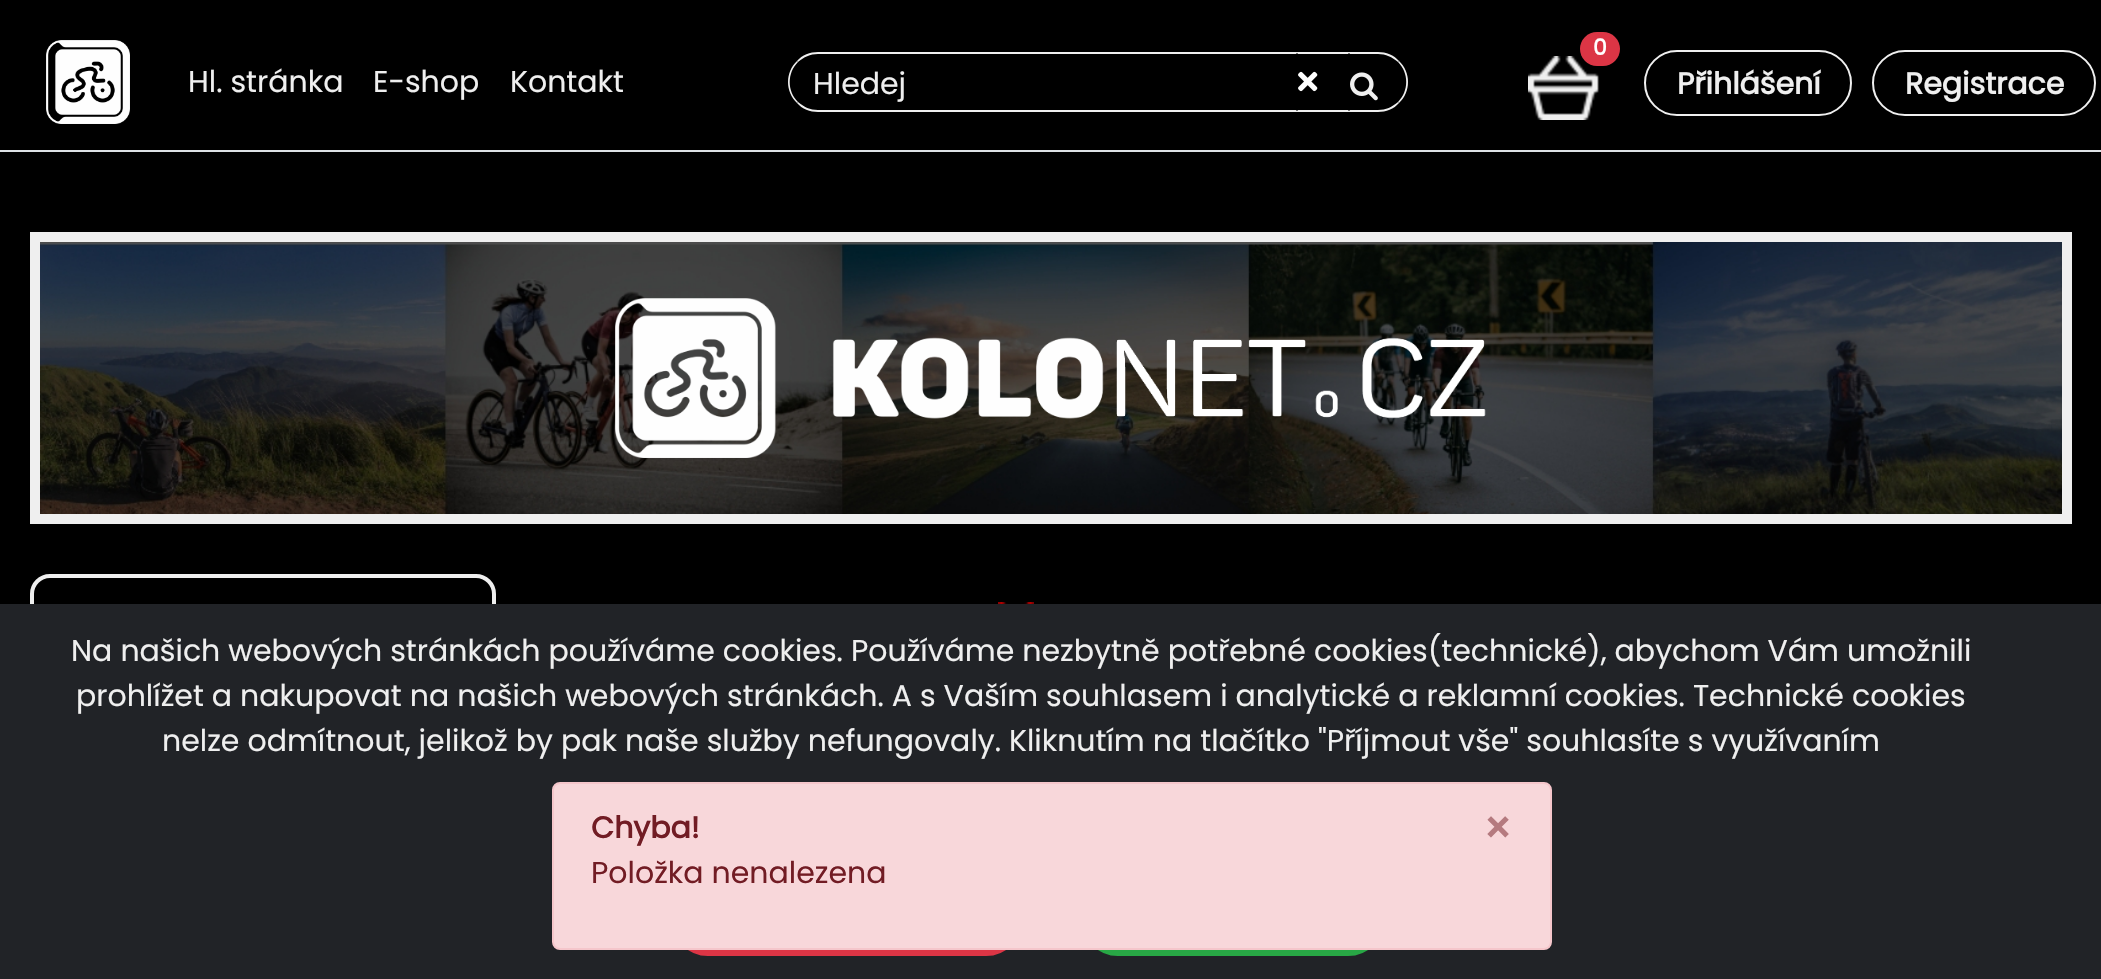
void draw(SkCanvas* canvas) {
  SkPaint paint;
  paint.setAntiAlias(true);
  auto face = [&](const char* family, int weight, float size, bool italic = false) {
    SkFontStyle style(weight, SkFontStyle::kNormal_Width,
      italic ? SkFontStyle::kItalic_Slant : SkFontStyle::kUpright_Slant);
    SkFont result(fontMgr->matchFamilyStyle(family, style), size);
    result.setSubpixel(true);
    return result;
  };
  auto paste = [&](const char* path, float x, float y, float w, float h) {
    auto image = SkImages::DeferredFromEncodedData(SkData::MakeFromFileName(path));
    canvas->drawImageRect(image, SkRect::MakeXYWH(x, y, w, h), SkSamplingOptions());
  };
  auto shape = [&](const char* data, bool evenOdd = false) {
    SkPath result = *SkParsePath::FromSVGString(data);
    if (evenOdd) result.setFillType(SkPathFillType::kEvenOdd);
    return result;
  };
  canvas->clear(0xff000000);
  paint.setColor(0xffdee2e6);
  canvas->drawRect(SkRect::MakeXYWH(0, 150, 2101, 2), paint);
  paste("img/1.png", 46, 40, 84, 84);
  paint.setColor(0xffefefef);
  canvas->drawPath(shape("M818 52C810 52 802 55 797 61L798 62C804 57 810 54 818 54H1296L1298 52Z"), paint);
  canvas->drawPath(shape("M1298 112L1296 110H818C810 110 804 107 798 102L797 103C802 109 810 112 818 112Z"), paint);
  canvas->drawPath(shape("M797 103C785 92 785 72 797 61L798 62C787 73 787 91 798 102Z"), paint);
  canvas->drawPath(shape("M1296 52H1350L1348 54H1298ZM1350 112H1296L1298 110H1348Z"), paint);
  paste("img/2.png", 1298, 71, 20, 21);
  canvas->drawPath(shape("M1348 52L1350 54H1378C1386 54 1392 57 1398 62L1399 61C1394 55 1386 52 1378 52Z"), paint);
  canvas->drawPath(shape("M1399 61C1411 72 1411 92 1399 103L1398 102C1409 91 1409 73 1398 62Z"), paint);
  canvas->drawPath(shape("M1378 112C1386 112 1394 109 1399 103L1398 102C1392 107 1386 110 1378 110H1350L1348 112Z"), paint);
  paste("img/3.png", 1350, 72, 28, 29);
  paste("img/4.png", 1528, 56, 71, 64);
  paint.setColor(0xffdc3545);
  canvas->drawRoundRect(SkRect::MakeXYWH(1580, 32, 40, 34), 17, 17, paint);
  paint.setStroke(true);
  paint.setStrokeWidth(2);
  paint.setColor(0xffefefef);
  canvas->drawRoundRect(SkRect::MakeXYWH(1645, 51, 206, 64), 32, 32, paint);
  canvas->drawRoundRect(SkRect::MakeXYWH(1873, 51, 222, 64), 32, 32, paint);
  paint.setStrokeWidth(10);
  canvas->drawRect(SkRect::MakeXYWH(35, 237, 2032, 282), paint);
  paste("img/5.png", 40, 242, 2022, 272);
  paste("img/6.png", 615, 298, 871, 160);
  paint.setStrokeWidth(4);
  canvas->drawRoundRect(SkRect::MakeXYWH(32, 576, 462, 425), 18, 18, paint);
  paste("img/7.png", 998, 602, 36, 2);
  paint.setStroke(false);
  paint.setColor(0xff212327);
  canvas->drawRect(SkRect::MakeXYWH(0, 604, 2101, 375), paint);
  paint.setColor(0xffdc3545);
  canvas->drawRoundRect(SkRect::MakeXYWH(673, 885, 348, 70), 35, 35, paint);
  paint.setStroke(true);
  paint.setStrokeWidth(2);
  canvas->drawRoundRect(SkRect::MakeXYWH(673, 885, 348, 70), 35, 35, paint);
  paint.setStroke(false);
  paint.setColor(0xff28a745);
  canvas->drawRoundRect(SkRect::MakeXYWH(1083, 885, 300, 70), 35, 35, paint);
  paint.setStroke(true);
  canvas->drawRoundRect(SkRect::MakeXYWH(1083, 885, 300, 70), 35, 35, paint);
  paint.setStroke(false);
  paint.setColor(0xfff8d7da);
  canvas->drawRoundRect(SkRect::MakeXYWH(553, 783, 998, 166), 7, 7, paint);
  paint.setStroke(true);
  paint.setColor(0xfff5c6cb);
  canvas->drawRoundRect(SkRect::MakeXYWH(553, 783, 998, 166), 7, 7, paint);
  auto f0 = face("Poppins", 400, 30);
  paint.setStroke(false);
  paint.setColor(0xffefefef);
  {
    const struct { const char* s; float x, y; } items[] = {
      {"Hl. stránka", 188, 92},
      {"E-shop", 373, 92},
      {"Kontakt", 510, 92},
      {"Hledej", 813, 94},
    };
    for (auto [s, x, y] : items) {
      canvas->drawString(s, x, y, f0, paint);
    }
  }
  auto f1 = face("Poppins", 700, 22);
  paint.setColor(0xffffffff);
  canvas->drawString("0", 1593, 55, f1, paint);
  auto f2 = face("Poppins", 700, 30);
  paint.setColor(0xffefefef);
  canvas->drawString("Přihlášení", 1677, 94, f2, paint);
  canvas->drawString("Registrace", 1905, 94, f2, paint);
  {
    const struct { const char* s; float x, y; } items[] = {
      {"Na našich webových stránkách používáme cookies. Používáme nezbytně potřebné cookies(technické), abychom Vám umožnili", 71, 661},
      {"prohlížet a nakupovat na našich webových stránkách. A s Vaším souhlasem i analytické a reklamní cookies. Technické cookies", 76, 706},
      {"nelze odmítnout, jelikož by pak naše služby nefungovaly. Kliknutím na tlačítko \"Příjmout vše\" souhlasíte s využívaním", 162, 751},
    };
    for (auto [s, x, y] : items) {
      canvas->drawString(s, x, y, f0, paint);
    }
  }
  paint.setColor(0xff721c24);
  canvas->drawString("Chyba!", 591, 838, f2, paint);
  auto f3 = face("Poppins", 700, 45);
  paint.setColor(0xffb57a7f);
  canvas->drawString("×", 1483, 844, f3, paint);
  paint.setColor(0xff721c24);
  canvas->drawString("Položka nenalezena", 591, 883, f0, paint);
}
